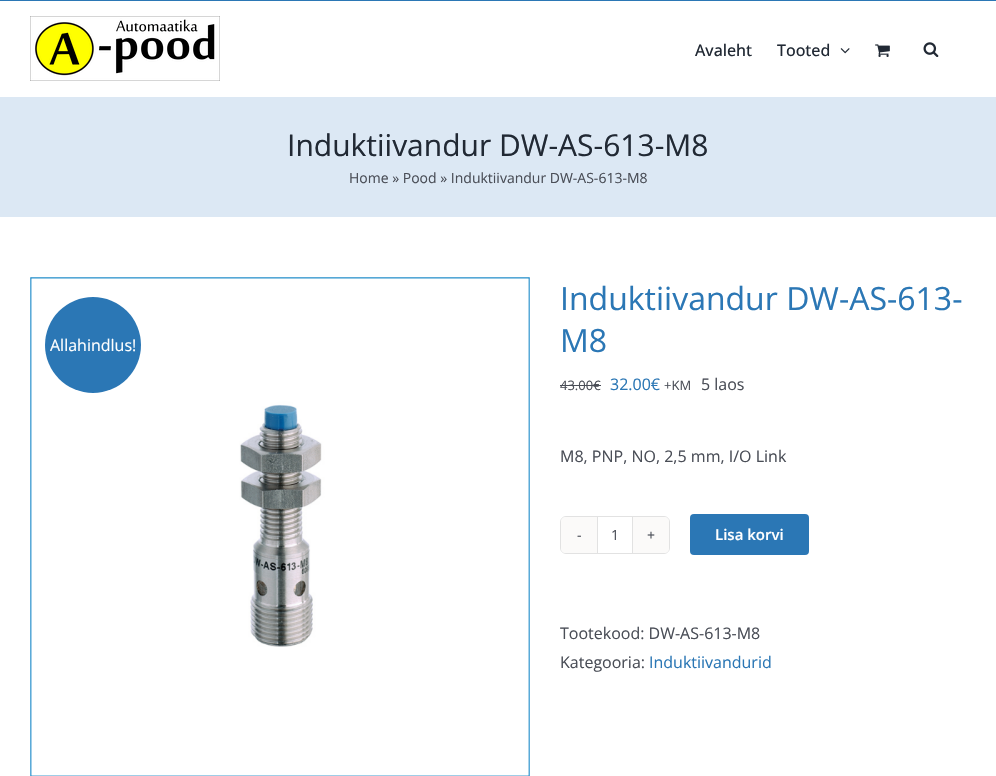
void draw(SkCanvas* canvas) {
  SkPaint paint;
  paint.setAntiAlias(true);
  auto face = [&](const char* family, int weight, float size, bool italic = false) {
    SkFontStyle style(weight, SkFontStyle::kNormal_Width,
      italic ? SkFontStyle::kItalic_Slant : SkFontStyle::kUpright_Slant);
    SkFont result(fontMgr->matchFamilyStyle(family, style), size);
    result.setSubpixel(true);
    return result;
  };
  auto paste = [&](const char* path, float x, float y, float w, float h) {
    auto image = SkImages::DeferredFromEncodedData(SkData::MakeFromFileName(path));
    canvas->drawImageRect(image, SkRect::MakeXYWH(x, y, w, h), SkSamplingOptions());
  };
  auto shape = [&](const char* data, bool evenOdd = false) {
    SkPath result = *SkParsePath::FromSVGString(data);
    if (evenOdd) result.setFillType(SkPathFillType::kEvenOdd);
    return result;
  };
  canvas->clear(0xffffffff);
  paint.setColor(0xff2b77b5);
  canvas->drawRect(SkRect::MakeXYWH(0, 0, 996, 1), paint);
  paste("img/1.png", 30, 16, 190, 65);
  paste("img/2.png", 840, 48, 10, 6);
  paste("img/3.png", 875, 44, 15, 13);
  paste("img/4.png", 923, 42, 16, 15);
  paint.setColor(0xffdce8f4);
  canvas->drawRect(SkRect::MakeXYWH(0, 97, 996, 120), paint);
  paste("img/5.png", 30, 277, 500, 499);
  paint.setColor(0xff2b77b5);
  canvas->drawCircle(93, 345, 48, paint);
  paint.setColor(0xff4a4e57);
  canvas->drawRect(SkRect::MakeXYWH(560, 385, 41, 1), paint);
  paint.setStroke(true);
  paint.setStrokeWidth(1);
  paint.setColor(0xffe2e2e2);
  canvas->drawRoundRect(SkRect::MakeXYWH(560.5f, 516.5f, 109, 37), 5.5f, 5.5f, paint);
  paint.setStroke(false);
  paint.setColor(0xfffbfaf9);
  canvas->drawPath(shape("M566 517H597V553H566C563 553 561 551 561 548V522C561 519 563 517 566 517Z"), paint);
  paint.setColor(0xffe2e2e2);
  canvas->drawRect(SkRect::MakeXYWH(632, 517, 1, 36), paint);
  canvas->drawRect(SkRect::MakeXYWH(597, 517, 1, 36), paint);
  paint.setColor(0xfffbfaf9);
  canvas->drawPath(shape("M633 517H664C667 517 669 519 669 522V548C669 551 667 553 664 553H633Z"), paint);
  paint.setColor(0xff2b77b5);
  canvas->drawRoundRect(SkRect::MakeXYWH(690, 514, 119, 41), 4, 4, paint);
  auto f0 = face("Open Sans", 500, 16);
  paint.setColor(0xff212934);
  canvas->drawString("Avaleht", 695, 56, f0, paint);
  canvas->drawString("Tooted", 777, 56, f0, paint);
  auto f1 = face("Open Sans", 400, 30);
  canvas->drawString("Induktiivandur DW-AS-613-M8", 287, 156, f1, paint);
  auto f2 = face("Open Sans", 400, 14);
  paint.setColor(0xff4a4e57);
  canvas->drawString("Home » Pood » Induktiivandur DW-AS-613-M8", 349, 183, f2, paint);
  auto f3 = face("Open Sans", 400, 16);
  paint.setColor(0xffffffff);
  canvas->drawString("Allahindlus!", 50, 351, f3, paint);
  auto f4 = face("Open Sans", 400, 32);
  paint.setColor(0xff2b77b5);
  canvas->drawString("Induktiivandur DW-AS-613-", 560, 310, f4, paint);
  canvas->drawString("M8", 560, 352, f4, paint);
  auto f5 = face("Open Sans", 400, 13);
  paint.setColor(0xff4a4e57);
  canvas->drawString("43.00€", 560, 390, f5, paint);
  paint.setColor(0xff2b77b5);
  canvas->drawString("32.00€", 610, 390, f3, paint);
  paint.setColor(0xff4a4e57);
  canvas->drawString("+KM", 664, 390, f5, paint);
  canvas->drawString("5 laos", 701, 390, f3, paint);
  canvas->drawString("M8, PNP, NO, 2,5 mm, I/O Link", 560, 462, f3, paint);
  {
    const struct { const char* s; float x, y; } items[] = {
      {"-", 577, 540},
      {"1", 611, 540},
      {"+", 647, 540},
    };
    for (auto [s, x, y] : items) {
      canvas->drawString(s, x, y, f2, paint);
    }
  }
  auto f6 = face("Open Sans", 600, 15);
  paint.setColor(0xffffffff);
  canvas->drawString("Lisa korvi", 715, 540, f6, paint);
  paint.setColor(0xff4a4e57);
  canvas->drawString("Tootekood: DW-AS-613-M8", 560, 639, f3, paint);
  canvas->drawString("Kategooria:", 560, 668, f3, paint);
  paint.setColor(0xff2b77b5);
  canvas->drawString("Induktiivandurid", 649, 668, f3, paint);
}
